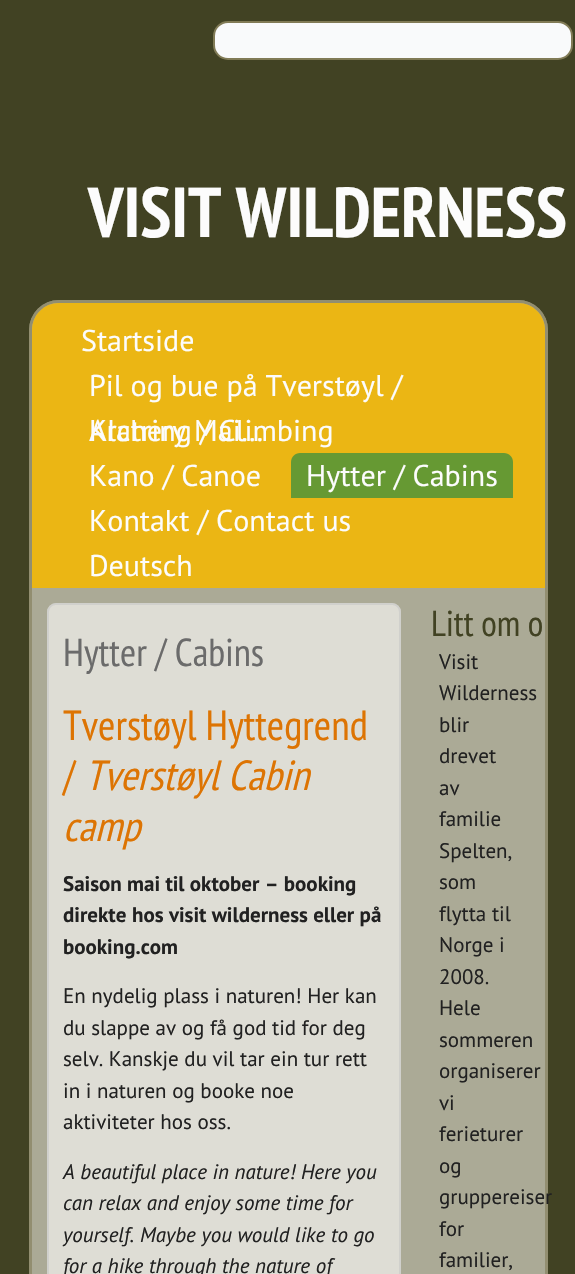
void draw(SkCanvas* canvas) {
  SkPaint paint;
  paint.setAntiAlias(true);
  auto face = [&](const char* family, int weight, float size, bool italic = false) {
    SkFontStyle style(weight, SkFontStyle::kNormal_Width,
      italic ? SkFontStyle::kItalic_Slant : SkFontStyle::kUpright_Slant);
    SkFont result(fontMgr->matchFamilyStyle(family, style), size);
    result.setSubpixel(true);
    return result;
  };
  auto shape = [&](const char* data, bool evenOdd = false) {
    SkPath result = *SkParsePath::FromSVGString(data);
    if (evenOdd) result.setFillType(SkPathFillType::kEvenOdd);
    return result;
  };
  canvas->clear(0xff414223);
  paint.setColor(0xfff9fafb);
  canvas->drawRoundRect(SkRect::MakeXYWH(214, 22, 358, 37), 14, 14, paint);
  paint.setStroke(true);
  paint.setStrokeWidth(2);
  paint.setColor(0xff817b56);
  canvas->drawRoundRect(SkRect::MakeXYWH(214, 22, 358, 37), 14, 14, paint);
  paint.setStroke(false);
  paint.setColor(0xffabaa96);
  canvas->drawRoundRect(SkRect::MakeXYWH(29, 300, 519, 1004), 30, 30, paint);
  paint.setStroke(true);
  paint.setStrokeWidth(3);
  paint.setColor(0x99817b56);
  canvas->drawRoundRect(SkRect::MakeXYWH(30.5f, 301.5f, 516, 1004), 28.5f, 28.5f, paint);
  paint.setStroke(false);
  paint.setColor(0xffebb614);
  canvas->drawPath(shape("M59 303H518C533 303 545 315 545 330V588H32V330C32 315 44 303 59 303Z"), paint);
  paint.setColor(0xff669933);
  canvas->drawPath(shape("M300 453H504C509 453 513 457 513 462V498H291V462C291 457 295 453 300 453Z"), paint);
  paint.setColor(0xffdeddd5);
  canvas->drawRoundRect(SkRect::MakeXYWH(47, 603, 354, 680), 9, 9, paint);
  paint.setStroke(true);
  paint.setStrokeWidth(2);
  paint.setColor(0x99c7c7c7);
  canvas->drawRoundRect(SkRect::MakeXYWH(48, 604, 352, 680), 8, 8, paint);
  auto f0 = face("PT Sans Narrow", 700, 70.5f);
  paint.setStroke(false);
  paint.setColor(0xfffcfcfc);
  canvas->drawString("VISIT WILDERNESS", 88, 237, f0, paint);
  auto f1 = face("PT Sans", 400, 30);
  {
    const struct { const char* s; float x, y; } items[] = {
      {"Startside", 81, 351},
      {"Pil og bue på Tverstøyl /", 89, 396},
      {"Archery Mai…", 89, 441},
      {"Klatring / Climbing", 89, 441},
      {"Kano / Canoe", 89, 486},
      {"Hytter / Cabins", 306, 486},
      {"Kontakt / Contact us", 89, 531},
      {"Deutsch", 89, 576},
    };
    for (auto [s, x, y] : items) {
      canvas->drawString(s, x, y, f1, paint);
    }
  }
  auto f2 = face("PT Sans Narrow", 400, 39);
  paint.setColor(0xff6b6b6b);
  canvas->drawString("Hytter / Cabins", 63, 666, f2, paint);
  auto f3 = face("PT Sans Narrow", 400, 42);
  paint.setColor(0xffdd7403);
  canvas->drawString("Tverstøyl Hyttegrend", 63, 740, f3, paint);
  canvas->drawString("/", 63, 790, f3, paint);
  auto f4 = face("PT Sans Narrow", 400, 42, true);
  canvas->drawString("Tverstøyl Cabin", 85, 790, f4, paint);
  canvas->drawString("camp", 63, 841, f4, paint);
  auto f5 = face("PT Sans", 700, 21);
  paint.setColor(0xff212121);
  {
    const struct { const char* s; float x, y; } items[] = {
      {"Saison mai til oktober – booking", 63, 891},
      {"direkte", 63, 922},
      {"hos visit wilderness eller på", 132, 922},
      {"booking.com", 63, 954},
    };
    for (auto [s, x, y] : items) {
      canvas->drawString(s, x, y, f5, paint);
    }
  }
  auto f6 = face("PT Sans", 400, 21);
  {
    const struct { const char* s; float x, y; } items[] = {
      {"En nydelig plass i naturen! Her kan", 63, 1003},
      {"du slappe av og få god tid for deg", 63, 1035},
      {"selv. Kanskje du vil tar ein tur rett", 63, 1066},
      {"in i naturen og booke noe", 63, 1098},
      {"aktiviteter hos oss.", 63, 1129},
    };
    for (auto [s, x, y] : items) {
      canvas->drawString(s, x, y, f6, paint);
    }
  }
  auto f7 = face("PT Sans", 400, 21, true);
  {
    const struct { const char* s; float x, y; } items[] = {
      {"A beautiful place in nature! Here you", 63, 1179},
      {"can relax and enjoy some time for", 63, 1210},
      {"yourself. Maybe you would like to go", 63, 1242},
      {"for a hike through the nature of", 63, 1273},
    };
    for (auto [s, x, y] : items) {
      canvas->drawString(s, x, y, f7, paint);
    }
  }
  auto f8 = face("PT Sans Narrow", 400, 36);
  paint.setColor(0xff414223);
  canvas->drawString("Litt om o", 431, 636, f8, paint);
  paint.setColor(0xff212121);
  {
    const struct { const char* s; float x, y; } items[] = {
      {"Visit", 439, 669},
      {"Wilderness", 439, 700},
      {"blir", 439, 732},
      {"drevet", 439, 763},
      {"av", 439, 795},
      {"familie", 439, 826},
      {"Spelten,", 439, 858},
      {"som", 439, 889},
      {"flytta til", 439, 921},
      {"Norge i", 439, 952},
      {"2008.", 439, 984},
      {"Hele", 439, 1015},
      {"sommeren", 439, 1047},
      {"organiserer", 439, 1078},
      {"vi", 439, 1110},
      {"ferieturer", 439, 1141},
      {"og", 439, 1173},
      {"gruppereiser", 439, 1204},
      {"for", 439, 1236},
      {"familier,", 439, 1267},
    };
    for (auto [s, x, y] : items) {
      canvas->drawString(s, x, y, f6, paint);
    }
  }
}
